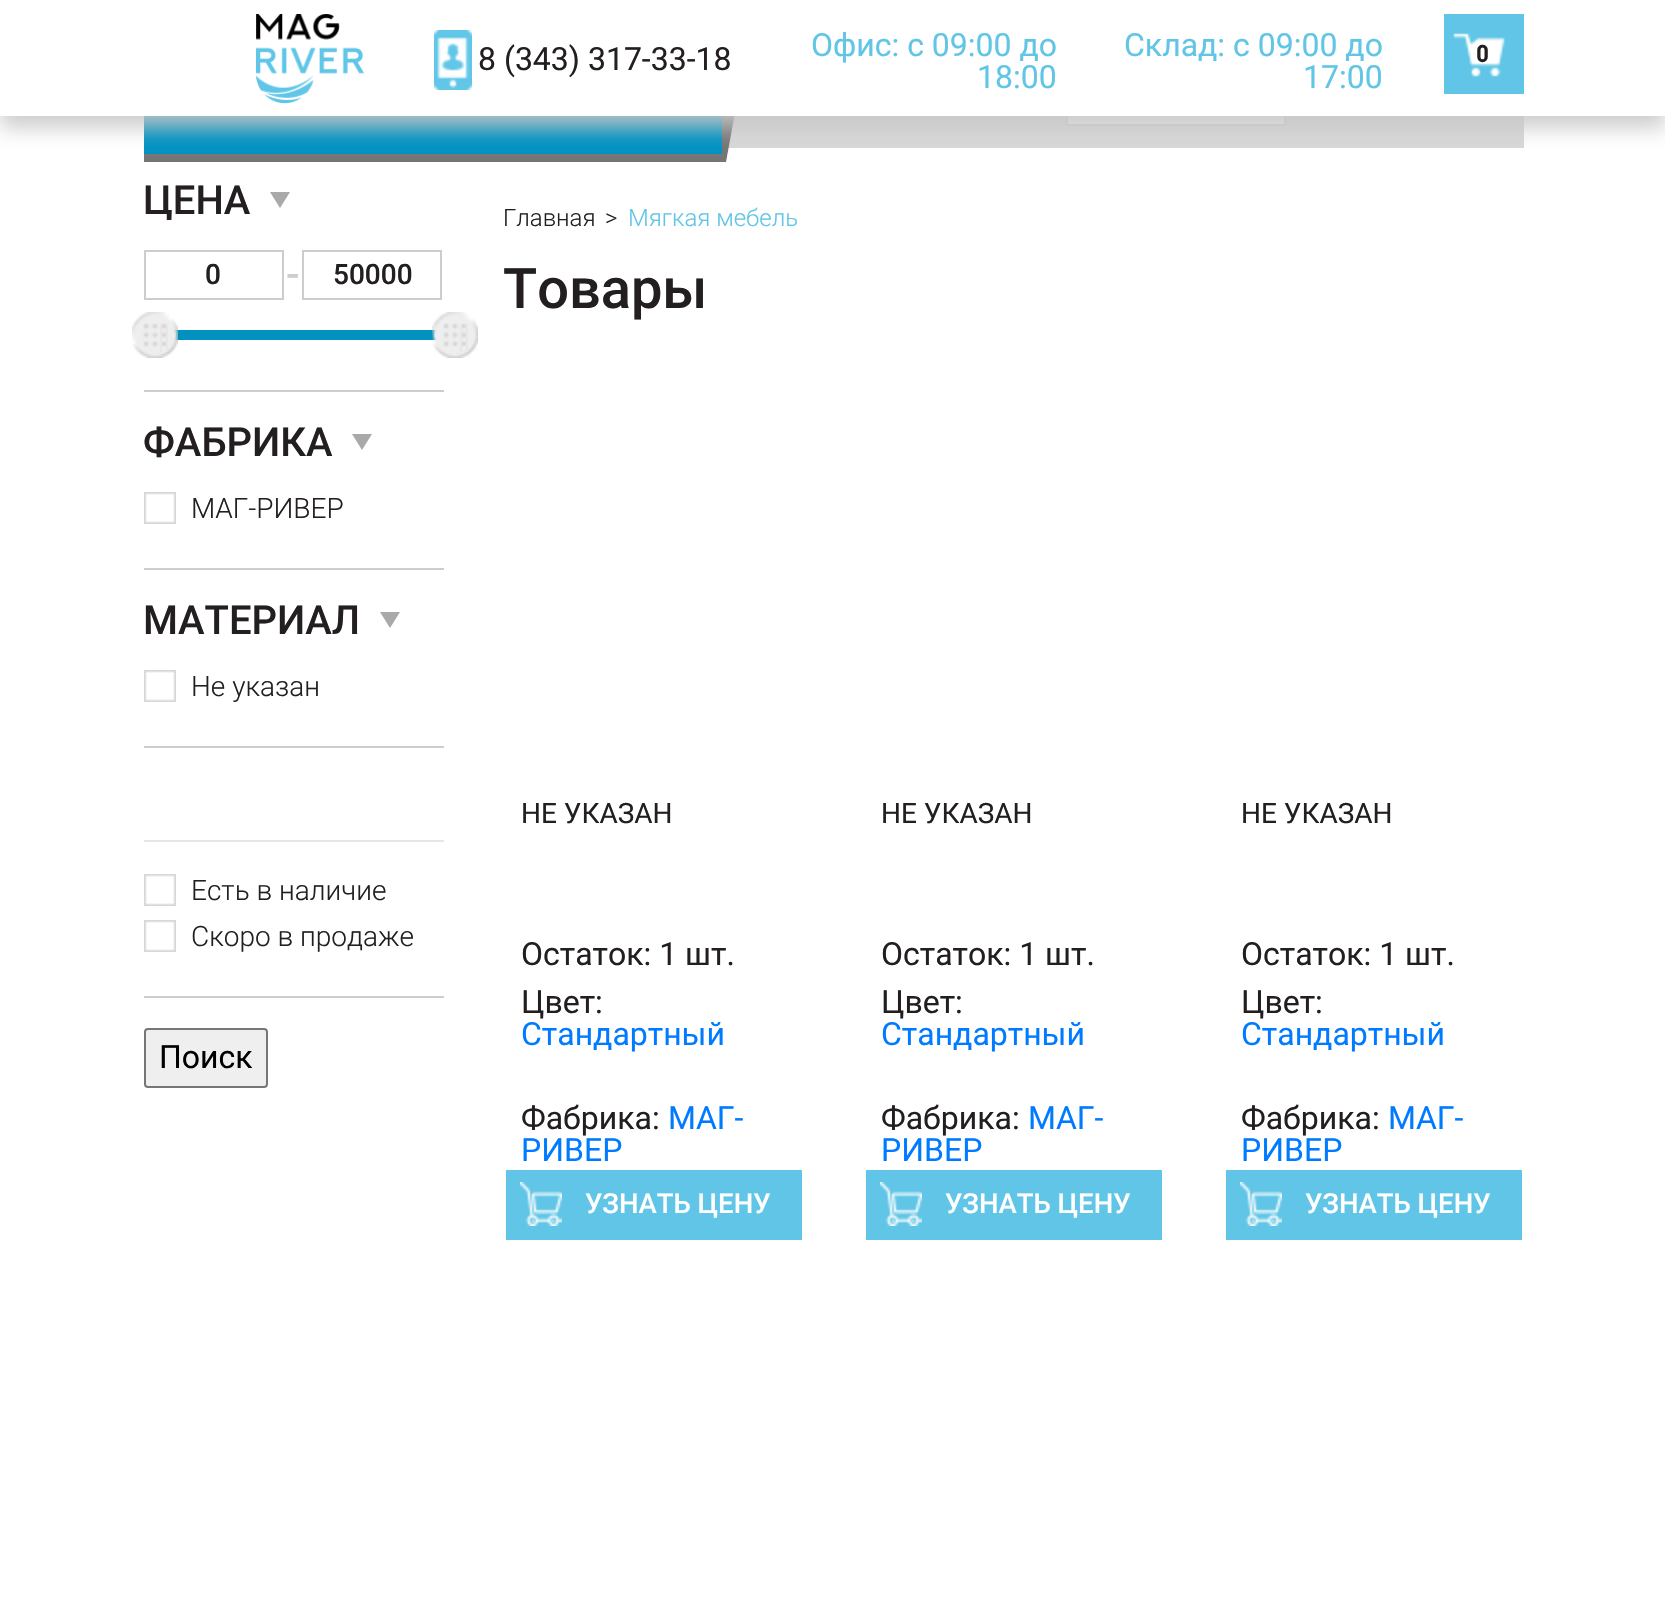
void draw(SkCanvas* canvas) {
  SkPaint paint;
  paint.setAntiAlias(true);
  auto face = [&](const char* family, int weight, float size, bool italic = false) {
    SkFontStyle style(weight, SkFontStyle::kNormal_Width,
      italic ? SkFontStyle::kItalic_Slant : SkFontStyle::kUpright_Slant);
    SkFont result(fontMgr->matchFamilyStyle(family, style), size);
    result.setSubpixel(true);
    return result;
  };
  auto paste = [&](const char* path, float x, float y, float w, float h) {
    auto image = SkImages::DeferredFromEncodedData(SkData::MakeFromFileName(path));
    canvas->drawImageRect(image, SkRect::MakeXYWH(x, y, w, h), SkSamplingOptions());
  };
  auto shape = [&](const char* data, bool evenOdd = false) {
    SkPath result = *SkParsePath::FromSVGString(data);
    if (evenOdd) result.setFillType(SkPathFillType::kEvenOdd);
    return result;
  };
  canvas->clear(0xffffffff);
  paint.setColor(0xffd7d7d7);
  canvas->drawRect(SkRect::MakeXYWH(728, 116, 796, 32), paint);
  paint.setColor(0xff757575);
  canvas->drawPath(shape("M144 52H746L726 162H144Z"), paint);
  paint.setColor(0xff0091c1);
  canvas->drawRect(SkRect::MakeXYWH(144, 116, 578, 38), paint);
  paint.setColor(0xffefefef);
  canvas->drawRect(SkRect::MakeXYWH(1068, 116, 216, 8), paint);
  paint.setStroke(true);
  paint.setStrokeWidth(2);
  paint.setColor(0xffcdcdcd);
  canvas->drawRect(SkRect::MakeXYWH(1067, 77, 218, 48), paint);
  paint.setStroke(false);
  paint.setColor(0xe6c6c6c6);
  paint.setMaskFilter(SkMaskFilter::MakeBlur(kNormal_SkBlurStyle, 10));
  canvas->drawRect(SkRect::MakeXYWH(0, 12, 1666, 116), paint);
  paint.setMaskFilter(nullptr);
  paint.setColor(0xffffffff);
  canvas->drawRect(SkRect::MakeXYWH(0, 0, 1665, 116), paint);
  paste("img/1.png", 256, 14, 108, 90);
  paste("img/2.png", 434, 30, 38, 60);
  paint.setColor(0xff60c5e6);
  canvas->drawRect(SkRect::MakeXYWH(1444, 14, 80, 80), paint);
  paste("img/3.png", 1453, 33, 52, 44);
  paint.setColor(0xffa9a9a9);
  canvas->drawPath(shape("M270 192H290L280 208Z"), paint);
  paint.setColor(0xffcdcdcd);
  canvas->drawRect(SkRect::MakeXYWH(144, 390, 300, 2), paint);
  paint.setStroke(true);
  canvas->drawRect(SkRect::MakeXYWH(145, 251, 138, 48), paint);
  canvas->drawRect(SkRect::MakeXYWH(303, 251, 138, 48), paint);
  paint.setStroke(false);
  paint.setColor(0xff0091c1);
  canvas->drawRect(SkRect::MakeXYWH(173, 330, 264, 10), paint);
  paste("img/4.png", 132, 312, 46, 46);
  paint.setColor(0xffe8e7e6);
  canvas->drawRect(SkRect::MakeXYWH(160, 324, 2, 28), paint);
  canvas->drawRect(SkRect::MakeXYWH(166, 324, 2, 28), paint);
  paste("img/5.png", 432, 312, 46, 46);
  canvas->drawRect(SkRect::MakeXYWH(460, 324, 2, 28), paint);
  canvas->drawRect(SkRect::MakeXYWH(466, 324, 2, 28), paint);
  paint.setColor(0xffa9a9a9);
  canvas->drawPath(shape("M352 434H372L362 450Z"), paint);
  paint.setColor(0xffcdcdcd);
  canvas->drawRect(SkRect::MakeXYWH(144, 568, 300, 2), paint);
  paste("img/6.png", 144, 492, 32, 32);
  paint.setColor(0xffa9a9a9);
  canvas->drawPath(shape("M380 612H400L390 628Z"), paint);
  paint.setColor(0xffcdcdcd);
  canvas->drawRect(SkRect::MakeXYWH(144, 746, 300, 2), paint);
  paste("img/6.png", 144, 670, 32, 32);
  canvas->drawRect(SkRect::MakeXYWH(144, 996, 300, 2), paint);
  paint.setColor(0xffe6e6e6);
  canvas->drawRect(SkRect::MakeXYWH(144, 840, 300, 2), paint);
  paste("img/6.png", 144, 874, 32, 32);
  paste("img/6.png", 144, 920, 32, 32);
  paint.setColor(0xffefefef);
  canvas->drawRoundRect(SkRect::MakeXYWH(145, 1029, 122, 58), 3, 3, paint);
  paint.setStroke(true);
  paint.setColor(0xff767676);
  canvas->drawRoundRect(SkRect::MakeXYWH(145, 1029, 122, 58), 3, 3, paint);
  paint.setStroke(false);
  paint.setColor(0xff60c5e6);
  canvas->drawRect(SkRect::MakeXYWH(506, 1170, 296, 70), paint);
  paste("img/7.png", 520, 1182, 42, 44);
  canvas->drawRect(SkRect::MakeXYWH(866, 1170, 296, 70), paint);
  paste("img/7.png", 880, 1182, 42, 44);
  canvas->drawRect(SkRect::MakeXYWH(1226, 1170, 296, 70), paint);
  paste("img/7.png", 1240, 1182, 42, 44);
  auto f0 = face("Roboto", 400, 32);
  paint.setColor(0xff231f20);
  canvas->drawString("8 (343) 317-33-18", 478, 70, f0, paint);
  paint.setColor(0xff61c5e6);
  {
    const struct { const char* s; float x, y; } items[] = {
      {"Офис: с 09:00 до", 811, 56},
      {"18:00", 977, 88},
      {"Склад: с 09:00 до", 1124, 56},
      {"17:00", 1303, 88},
    };
    for (auto [s, x, y] : items) {
      canvas->drawString(s, x, y, f0, paint);
    }
  }
  auto f1 = face("DIN", 700, 24);
  paint.setColor(0xff231f20);
  canvas->drawString("0", 1476, 62, f1, paint);
  canvas->save();
  canvas->clipRect(SkRect::MakeXYWH(144, 180, 300, 40));
  auto f2 = face("Roboto", 500, 40);
  canvas->drawString("ЦЕНА", 143, 214, f2, paint);
  canvas->restore();
  auto f3 = face("Roboto", 500, 28);
  canvas->drawString("0", 205, 284, f3, paint);
  paint.setColor(0xffcdcdcd);
  canvas->drawString("-", 286, 288, f2, paint);
  paint.setColor(0xff231f20);
  canvas->drawString("50000", 333, 284, f3, paint);
  canvas->drawString("ФАБРИКА", 143, 456, f2, paint);
  auto f4 = face("Roboto", 300, 28);
  canvas->drawString("МАГ-РИВЕР", 191, 518, f4, paint);
  canvas->drawString("МАТЕРИАЛ", 143, 634, f2, paint);
  {
    const struct { const char* s; float x, y; } items[] = {
      {"Не указан", 191, 696},
      {"Есть в наличие", 191, 900},
      {"Скоро в продаже", 191, 946},
    };
    for (auto [s, x, y] : items) {
      canvas->drawString(s, x, y, f4, paint);
    }
  }
  paint.setColor(0xff000000);
  canvas->drawString("Поиск", 159, 1068, f0, paint);
  auto f5 = face("Roboto", 300, 24);
  paint.setColor(0xff231f20);
  canvas->drawString("Главная", 503, 226, f5, paint);
  canvas->drawString(">", 605, 226, f5, paint);
  paint.setColor(0xff61c5e6);
  canvas->drawString("Мягкая мебель", 628, 226, f5, paint);
  auto f6 = face("Roboto", 500, 56);
  paint.setColor(0xff231f20);
  canvas->drawString("Товары", 503, 308, f6, paint);
  auto f7 = face("Roboto", 400, 28);
  canvas->drawString("НЕ УКАЗАН", 521, 823, f7, paint);
  canvas->drawString("Остаток: 1 шт.", 521, 965, f0, paint);
  canvas->drawString("Цвет:", 521, 1013, f0, paint);
  paint.setColor(0xff007bff);
  canvas->drawString("Стандартный", 521, 1045, f0, paint);
  paint.setColor(0xff231f20);
  canvas->drawString("Фабрика:", 521, 1129, f0, paint);
  paint.setColor(0xff007bff);
  canvas->drawString("МАГ-", 668, 1129, f0, paint);
  canvas->drawString("РИВЕР", 521, 1161, f0, paint);
  auto f8 = face("Roboto", 500, 27.5f);
  paint.setColor(0xffffffff);
  canvas->drawString("УЗНАТЬ ЦЕНУ", 585, 1213, f8, paint);
  paint.setColor(0xff231f20);
  canvas->drawString("НЕ УКАЗАН", 881, 823, f7, paint);
  canvas->drawString("Остаток: 1 шт.", 881, 965, f0, paint);
  canvas->drawString("Цвет:", 881, 1013, f0, paint);
  paint.setColor(0xff007bff);
  canvas->drawString("Стандартный", 881, 1045, f0, paint);
  paint.setColor(0xff231f20);
  canvas->drawString("Фабрика:", 881, 1129, f0, paint);
  paint.setColor(0xff007bff);
  canvas->drawString("МАГ-", 1028, 1129, f0, paint);
  canvas->drawString("РИВЕР", 881, 1161, f0, paint);
  paint.setColor(0xffffffff);
  canvas->drawString("УЗНАТЬ ЦЕНУ", 945, 1213, f8, paint);
  paint.setColor(0xff231f20);
  canvas->drawString("НЕ УКАЗАН", 1241, 823, f7, paint);
  canvas->drawString("Остаток: 1 шт.", 1241, 965, f0, paint);
  canvas->drawString("Цвет:", 1241, 1013, f0, paint);
  paint.setColor(0xff007bff);
  canvas->drawString("Стандартный", 1241, 1045, f0, paint);
  paint.setColor(0xff231f20);
  canvas->drawString("Фабрика:", 1241, 1129, f0, paint);
  paint.setColor(0xff007bff);
  canvas->drawString("МАГ-", 1388, 1129, f0, paint);
  canvas->drawString("РИВЕР", 1241, 1161, f0, paint);
  paint.setColor(0xffffffff);
  canvas->drawString("УЗНАТЬ ЦЕНУ", 1305, 1213, f8, paint);
}
